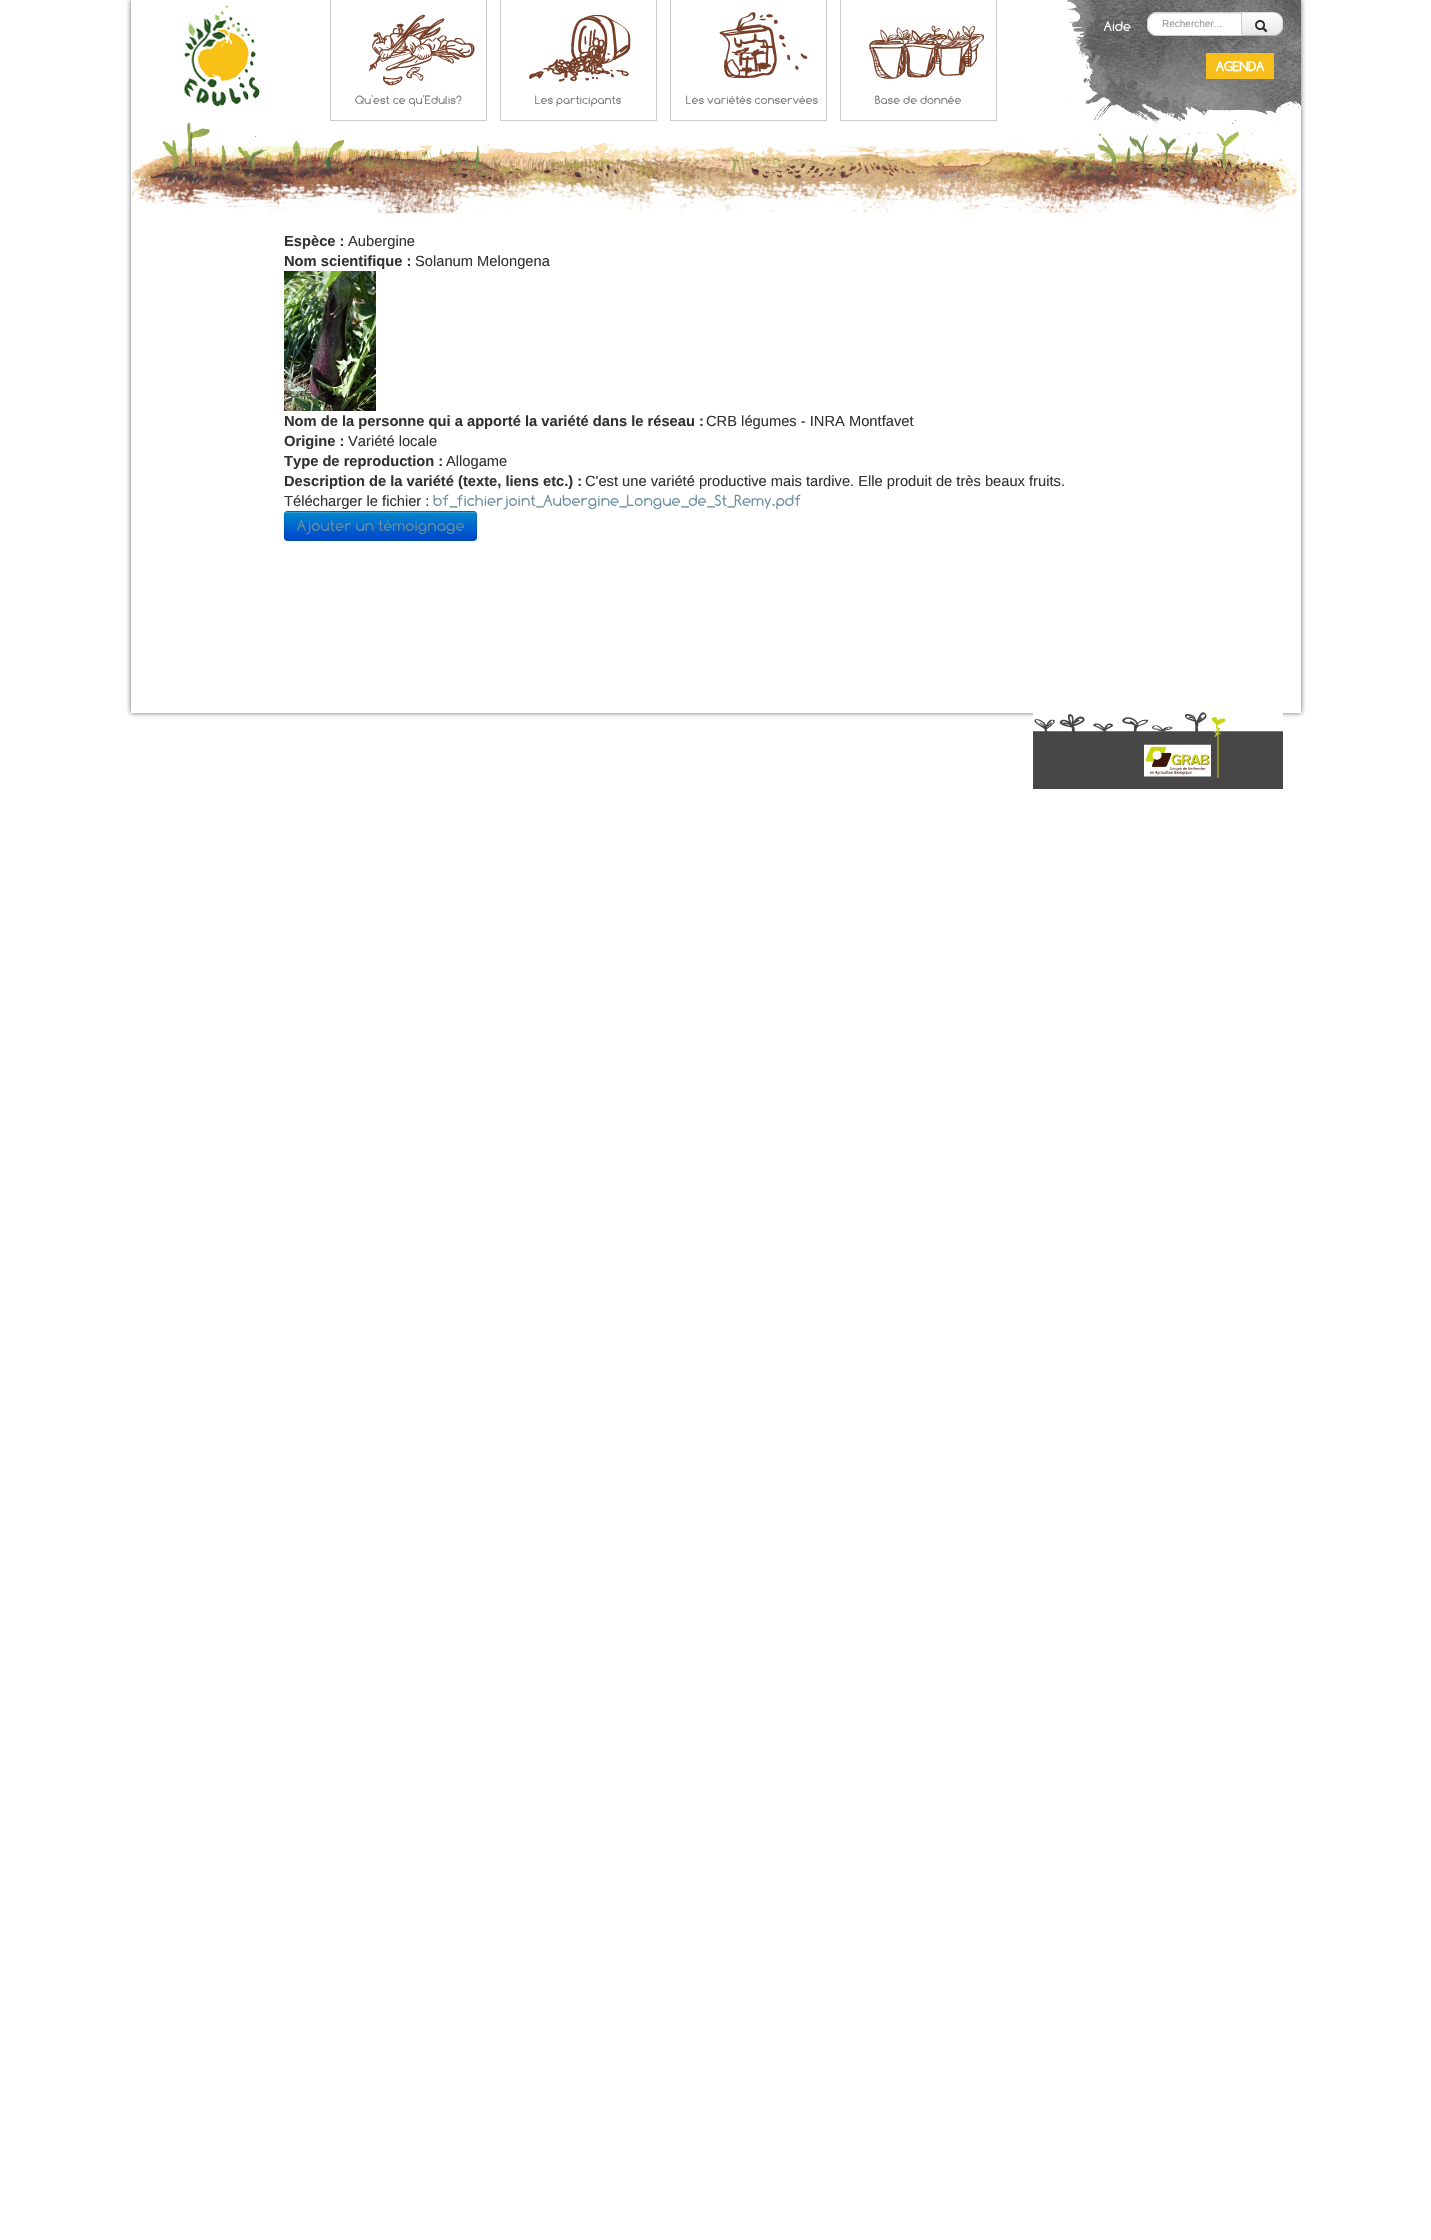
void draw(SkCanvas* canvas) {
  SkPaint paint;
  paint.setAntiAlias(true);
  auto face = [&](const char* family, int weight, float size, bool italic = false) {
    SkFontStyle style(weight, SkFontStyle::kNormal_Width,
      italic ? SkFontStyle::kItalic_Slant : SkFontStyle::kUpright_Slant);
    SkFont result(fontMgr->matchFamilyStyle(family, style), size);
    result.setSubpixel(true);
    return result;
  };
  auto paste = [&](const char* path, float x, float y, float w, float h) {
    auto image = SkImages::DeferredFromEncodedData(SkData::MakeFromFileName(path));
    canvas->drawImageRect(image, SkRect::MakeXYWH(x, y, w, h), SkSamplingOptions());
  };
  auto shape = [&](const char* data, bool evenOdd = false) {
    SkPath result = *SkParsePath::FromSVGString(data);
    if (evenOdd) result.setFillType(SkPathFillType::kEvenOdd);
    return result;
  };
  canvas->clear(0xffffffff);
  canvas->save();
  canvas->clipPath(shape("M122 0H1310V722H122ZM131 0H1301V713H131Z", true), true);
  paint.setColor(0xff656565);
  paint.setMaskFilter(SkMaskFilter::MakeBlur(kNormal_SkBlurStyle, 2.5f));
  canvas->drawRect(SkRect::MakeXYWH(131, 0, 1170, 713), paint);
  paint.setMaskFilter(nullptr);
  canvas->restore();
  paste("img/1.png", 183, 5, 77, 102);
  paste("img/8.png", 131, 121, 1168, 93);
  paste("img/2.png", 1067, 0, 234, 122);
  paint.setColor(0xfff5f5f5);
  canvas->drawPath(shape("M1241 12H1273C1278.5 12 1283 16.5 1283 22V26C1283 31.5 1278.5 36 1273 36H1241Z"), paint);
  canvas->save();
  canvas->clipPath(shape("M1241 12H1273C1278.5 12 1283 16.5 1283 22V26C1283 31.5 1278.5 36 1273 36H1241Z"), true);
  {
    const SkColor colors[] = {0xffffffff, 0xffe6e6e6};
    const float stops[] = {0, 1};
    const SkPoint ends[] = {{1262, 13}, {1262, 35}};
    paint.setShader(SkGradientShader::MakeLinear(ends, colors, stops, 2, SkTileMode::kClamp));
    paint.setAlpha(255);
  }
  canvas->drawRect(SkRect::MakeXYWH(1242, 13, 41, 22), paint);
  canvas->restore();
  paint.setShader(nullptr);
  paint.setColor(0x1a000000);
  canvas->drawPath(shape("M1241 12L1242 13H1273C1275.5 13.5 1277.5 14 1279.5 15.5L1280 15C1278 13 1275.5 12.5 1272.5 12Z"), paint);
  canvas->drawPath(shape("M1280 15C1284.5 19 1284 29 1280 33L1279.5 32.5C1282.5 28.5 1283.5 19.5 1279.5 15.5Z"), paint);
  paint.setColor(0xffb3b3b3);
  canvas->drawPath(shape("M1275 36C1277 35.5 1279 34.5 1280 33L1279.5 32.5C1278.5 33.5 1277 34.5 1275 35H1242L1241 36Z"), paint);
  paint.setColor(0xffffffff);
  canvas->drawPath(shape("M1157 12H1242V36H1157C1151.5 36 1147 31.5 1147 26V22C1147 16.5 1151.5 12 1157 12Z"), paint);
  paint.setColor(0xffececec);
  canvas->drawPath(shape("M1157 14H1241V13H1157C1152 13 1148 17 1148 22V23C1149 18 1152 14 1157 14Z"), paint);
  paint.setStroke(true);
  paint.setStrokeWidth(1);
  paint.setColor(0xffcccccc);
  canvas->drawPath(shape("M1157 12.5H1241.5V35.5H1157C1152 35.5 1147.5 31 1147.5 26V22C1147.5 17 1152 12.5 1157 12.5Z"), paint);
  paste("img/3.png", 1255, 20, 13, 13);
  paint.setStroke(false);
  {
    const struct { float x, y, w, h; SkColor color; } items[] = {
      {1206, 53, 68, 26, 0xfff6bf1b},
      {486, 0, 1, 121, 0xffcccccc},
      {330, 120, 157, 1, 0xffcccccc},
      {330, 0, 1, 121, 0xffcccccc},
    };
    for (auto [x, y, w, h, color] : items) {
      paint.setColor(color);
      canvas->drawRect(SkRect::MakeXYWH(x, y, w, h), paint);
    }
  }
  paste("img/4.png", 369, 14, 106, 72);
  {
    const struct { float x, y, w, h; SkColor color; } items[] = {
      {656, 0, 1, 121, 0xffcccccc},
      {500, 120, 157, 1, 0xffcccccc},
      {500, 0, 1, 121, 0xffcccccc},
    };
    for (auto [x, y, w, h, color] : items) {
      paint.setColor(color);
      canvas->drawRect(SkRect::MakeXYWH(x, y, w, h), paint);
    }
  }
  paste("img/5.png", 529, 15, 102, 67);
  {
    const struct { float x, y, w, h; SkColor color; } items[] = {
      {826, 0, 1, 121, 0xffcccccc},
      {670, 120, 157, 1, 0xffcccccc},
      {670, 0, 1, 121, 0xffcccccc},
    };
    for (auto [x, y, w, h, color] : items) {
      paint.setColor(color);
      canvas->drawRect(SkRect::MakeXYWH(x, y, w, h), paint);
    }
  }
  paste("img/6.png", 719, 12, 89, 66);
  {
    const struct { float x, y, w, h; SkColor color; } items[] = {
      {996, 0, 1, 121, 0xffcccccc},
      {840, 120, 157, 1, 0xffcccccc},
      {840, 0, 1, 121, 0xffcccccc},
    };
    for (auto [x, y, w, h, color] : items) {
      paint.setColor(color);
      canvas->drawRect(SkRect::MakeXYWH(x, y, w, h), paint);
    }
  }
  paste("img/7.png", 869, 25, 115, 54);
  paste("img/9.png", 284, 271, 92, 140);
  paint.setColor(0x0d000000);
  paint.setMaskFilter(SkMaskFilter::MakeBlur(kNormal_SkBlurStyle, 1));
  canvas->drawRoundRect(SkRect::MakeXYWH(284, 512, 193, 30), 4, 4, paint);
  paint.setMaskFilter(nullptr);
  paint.setColor(0xff006dcc);
  canvas->drawRoundRect(SkRect::MakeXYWH(284, 511, 193, 30), 4, 4, paint);
  canvas->save();
  canvas->clipPath(shape("M288 511H473C475 511 477 513 477 515V537C477 539 475 541 473 541H288C286 541 284 539 284 537V515C284 513 286 511 288 511Z"), true);
  {
    const SkColor colors[] = {0xff0088cc, 0xff0044cc};
    const float stops[] = {0, 1};
    const SkPoint ends[] = {{381, 512}, {381, 540}};
    paint.setShader(SkGradientShader::MakeLinear(ends, colors, stops, 2, SkTileMode::kClamp));
    paint.setAlpha(255);
  }
  canvas->drawRect(SkRect::MakeXYWH(284, 512, 193, 28), paint);
  canvas->restore();
  paint.setShader(nullptr);
  paint.setColor(0xff339fd6);
  canvas->drawPath(shape("M288 513H473C475 513 476 514 476 516C476 514 475 512 473 512H288C286 512 285 514 285 516C285 514 286 513 288 513Z"), paint);
  paint.setStroke(true);
  paint.setColor(0x40000000);
  canvas->drawPath(shape("M475.5 539.5L473 540.5H287.5L285.5 539.5"), paint);
  paint.setColor(0x1a000000);
  canvas->drawPath(shape("M285.5 539.5C283.5 537.5 284.5 529 284.5 526V518.5C284.5 516 284 511.5 288 511.5H473C477 511.5 476.5 516 476.5 518.5V526C476.5 529 477.5 537.5 475.5 539.5"), paint);
  paste("img/10.png", 1033, 712, 250, 77);
  auto f0 = face("Comfortaa", 400, 14);
  paint.setStroke(false);
  paint.setColor(0xffffffff);
  canvas->drawString("Aide", 1104, 31, f0, paint);
  auto f1 = face("Liberation Sans", 400, 10);
  paint.setColor(0xff999999);
  canvas->drawString("Rechercher...", 1162, 27, f1, paint);
  auto f2 = face("Comfortaa", 700, 14);
  paint.setColor(0xffffffff);
  canvas->drawString("AGENDA", 1216, 71, f2, paint);
  auto f3 = face("Comfortaa", 400, 12);
  paint.setColor(0xff777777);
  {
    const struct { const char* s; float x, y; } items[] = {
      {"Qu'est ce qu'Edulis?", 355, 104},
      {"Les participants", 535, 104},
      {"Les variétés conservées", 686, 104},
      {"Base de donnée", 875, 104},
    };
    for (auto [s, x, y] : items) {
      canvas->drawString(s, x, y, f3, paint);
    }
  }
  auto f4 = face("Liberation Sans", 700, 14.7f);
  paint.setColor(0xff333333);
  canvas->drawString("Espèce :", 284, 246, f4, paint);
  auto f5 = face("Liberation Sans", 400, 14.7f);
  canvas->drawString("Aubergine", 348, 246, f5, paint);
  canvas->drawString("Nom scientifique :", 284, 266, f4, paint);
  canvas->drawString("Solanum Melongena", 415, 266, f5, paint);
  canvas->drawString("Nom de la personne qui a apporté la variété dans le réseau :", 284, 426, f4, paint);
  canvas->drawString("CRB légumes - INRA Montfavet", 706, 426, f5, paint);
  canvas->drawString("Origine :", 284, 446, f4, paint);
  canvas->drawString("Variété locale", 348, 446, f5, paint);
  canvas->drawString("Type de reproduction :", 284, 466, f4, paint);
  canvas->drawString("Allogame", 446, 466, f5, paint);
  canvas->drawString("Description de la variété (texte, liens etc.) :", 284, 486, f4, paint);
  canvas->drawString("C'est une variété productive mais tardive. Elle produit de très beaux fruits.", 585, 486, f5, paint);
  canvas->drawString("Télécharger le fichier :", 284, 506, f5, paint);
  auto f6 = face("Comfortaa", 400, 16);
  paint.setColor(0xff6a8d9f);
  canvas->drawString("bf_fichierjoint_Aubergine_Longue_de_St_Remy.pdf", 433, 506, f6, paint);
  canvas->drawString("Ajouter un témoignage", 297, 531, f6, paint);
}
